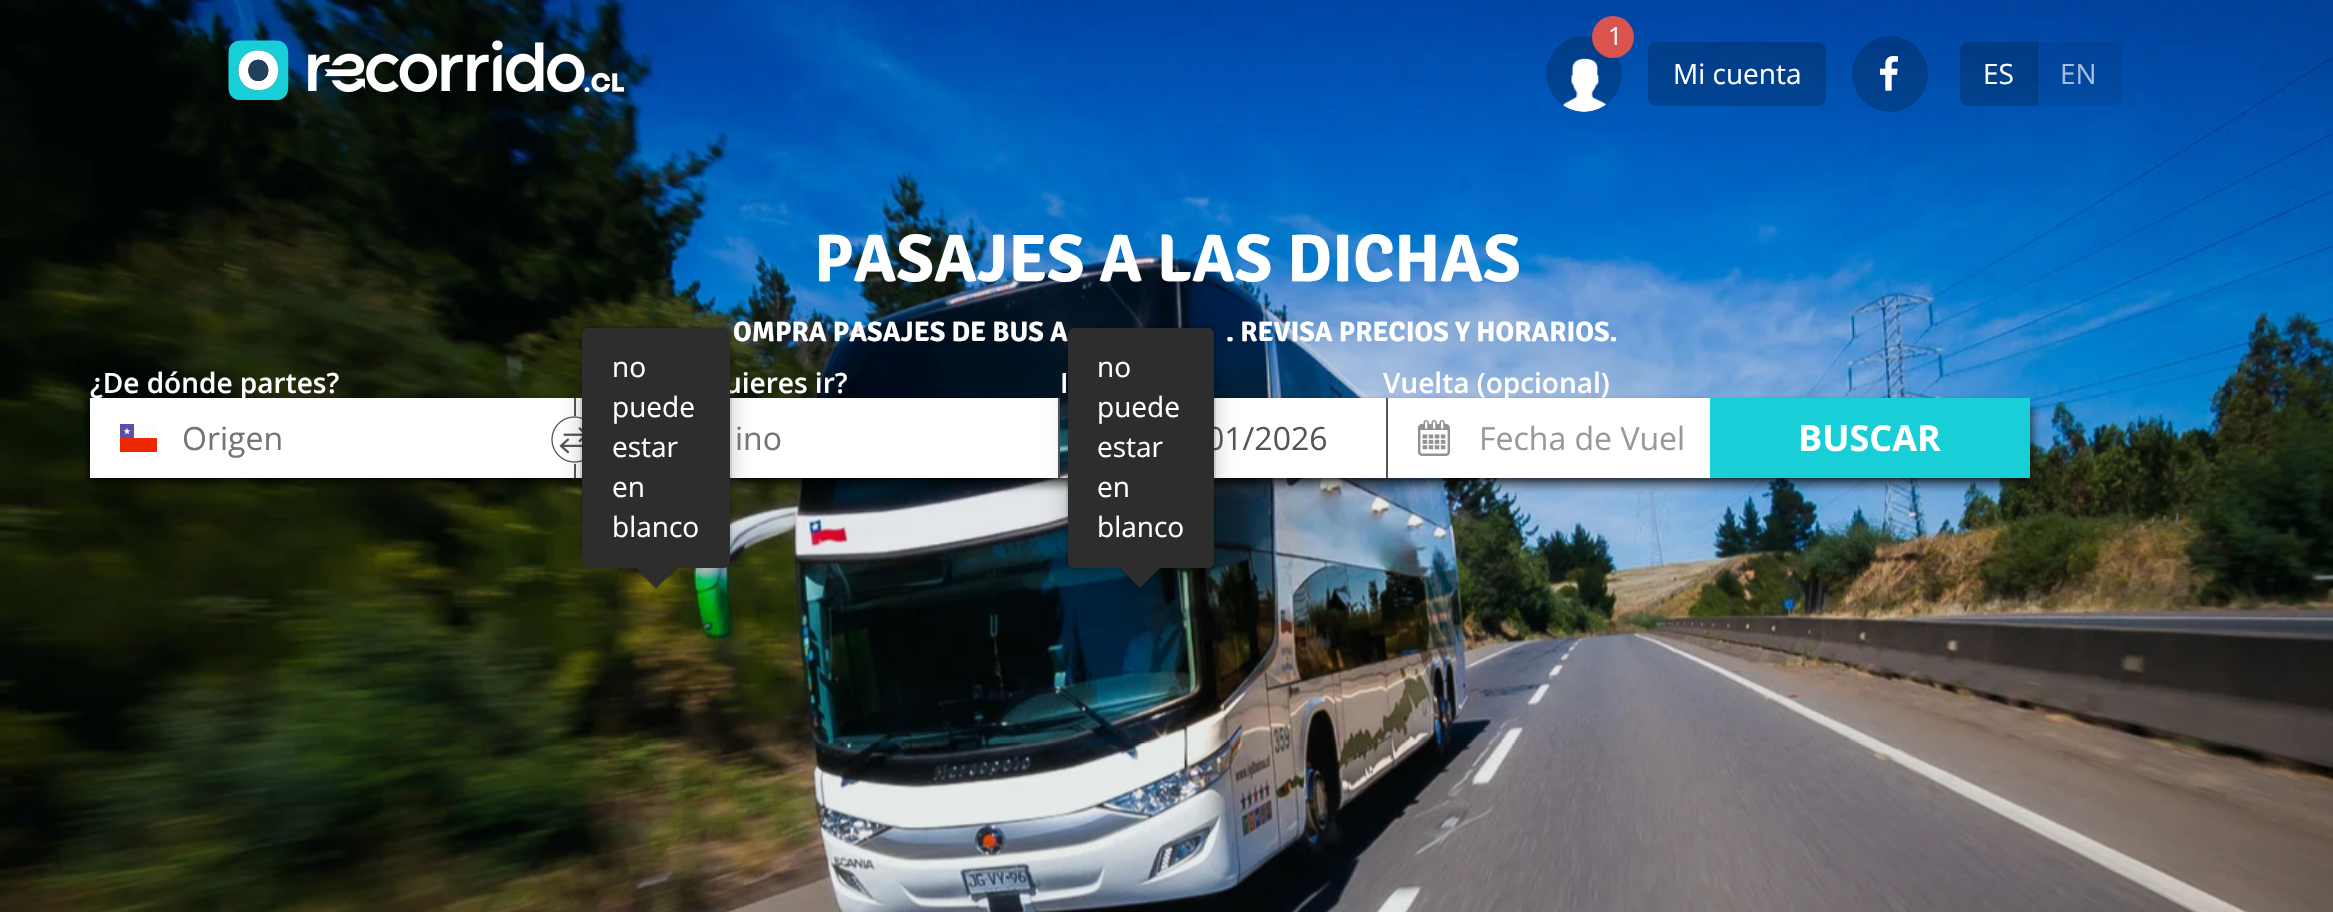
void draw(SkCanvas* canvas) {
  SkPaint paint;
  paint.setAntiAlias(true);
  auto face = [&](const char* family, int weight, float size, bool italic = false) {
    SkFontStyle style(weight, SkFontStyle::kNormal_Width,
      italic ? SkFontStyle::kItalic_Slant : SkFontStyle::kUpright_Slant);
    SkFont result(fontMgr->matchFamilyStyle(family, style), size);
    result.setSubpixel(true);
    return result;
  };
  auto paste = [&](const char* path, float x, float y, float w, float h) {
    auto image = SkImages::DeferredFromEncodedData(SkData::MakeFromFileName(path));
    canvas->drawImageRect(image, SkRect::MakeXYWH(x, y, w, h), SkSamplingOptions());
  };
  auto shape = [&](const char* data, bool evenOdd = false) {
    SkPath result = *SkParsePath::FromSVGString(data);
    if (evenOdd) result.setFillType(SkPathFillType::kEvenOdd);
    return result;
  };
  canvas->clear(0xffffffff);
  paste("img/4.png", 0, 0, 2333, 912);
  paste("img/1.png", 228, 40, 396, 60);
  paste("img/2.png", 1546, 36, 76, 76);
  paint.setColor(0xffd9534f);
  canvas->drawCircle(1613, 37, 21, paint);
  paint.setColor(0x33000000);
  canvas->drawRoundRect(SkRect::MakeXYWH(1648, 42, 178, 64), 8, 8, paint);
  canvas->drawCircle(1890, 74, 38, paint);
  paste("img/3.png", 1880, 56, 18, 35);
  canvas->drawPath(shape("M1968 42H2038V106H1968C1963.5 106 1960 102.5 1960 98V50C1960 45.5 1963.5 42 1968 42Z"), paint);
  paint.setColor(0x12000000);
  canvas->drawPath(shape("M2036 42H2114C2118.5 42 2122 45.5 2122 50V98C2122 102.5 2118.5 106 2114 106H2036Z"), paint);
  canvas->save();
  canvas->clipPath(shape("M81 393H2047V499H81ZM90 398H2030V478H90Z", true), true);
  paint.setColor(0x80000000);
  paint.setMaskFilter(SkMaskFilter::MakeBlur(kNormal_SkBlurStyle, 4));
  canvas->drawRect(SkRect::MakeXYWH(94, 406, 1940, 80), paint);
  paint.setMaskFilter(nullptr);
  canvas->restore();
  canvas->save();
  canvas->clipPath(shape("M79 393H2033V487H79ZM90 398H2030V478H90Z", true), true);
  paint.setMaskFilter(SkMaskFilter::MakeBlur(kNormal_SkBlurStyle, 2));
  canvas->drawRect(SkRect::MakeXYWH(86, 400, 1940, 80), paint);
  paint.setMaskFilter(nullptr);
  canvas->restore();
  paint.setColor(0xff555555);
  canvas->drawRect(SkRect::MakeXYWH(574, 398, 2, 80), paint);
  paint.setColor(0xffffffff);
  canvas->drawRect(SkRect::MakeXYWH(90, 398, 484, 80), paint);
  paste("img/5.png", 120, 424, 37, 28);
  canvas->drawRect(SkRect::MakeXYWH(576, 398, 482, 80), paint);
  canvas->drawCircle(574, 440, 24, paint);
  paste("img/6.png", 551, 416, 31, 47);
  canvas->save();
  canvas->clipPath(shape("M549 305H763V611H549ZM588 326H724C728.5 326 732 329.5 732 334V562C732 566.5 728.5 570 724 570H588C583.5 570 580 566.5 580 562V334C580 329.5 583.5 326 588 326Z", true), true);
  paint.setColor(0x33000000);
  paint.setMaskFilter(SkMaskFilter::MakeBlur(kNormal_SkBlurStyle, 10));
  canvas->drawRoundRect(SkRect::MakeXYWH(580, 336, 152, 244), 8, 8, paint);
  paint.setMaskFilter(nullptr);
  canvas->restore();
  paint.setColor(0xff555555);
  canvas->drawRect(SkRect::MakeXYWH(1058, 398, 2, 80), paint);
  paint.setColor(0xffffffff);
  canvas->drawRect(SkRect::MakeXYWH(1214, 398, 172, 80), paint);
  canvas->save();
  canvas->clipPath(shape("M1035 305H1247V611H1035ZM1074 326H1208C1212.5 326 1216 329.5 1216 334V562C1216 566.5 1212.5 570 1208 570H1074C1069.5 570 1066 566.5 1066 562V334C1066 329.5 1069.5 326 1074 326Z", true), true);
  paint.setColor(0x33000000);
  paint.setMaskFilter(SkMaskFilter::MakeBlur(kNormal_SkBlurStyle, 10));
  canvas->drawRoundRect(SkRect::MakeXYWH(1066, 336, 150, 244), 8, 8, paint);
  paint.setMaskFilter(nullptr);
  canvas->restore();
  paint.setColor(0xffffffff);
  canvas->drawRect(SkRect::MakeXYWH(1388, 398, 322, 80), paint);
  paste("img/7.png", 1417, 420, 34, 36);
  paint.setColor(0xff18cfd7);
  canvas->drawRect(SkRect::MakeXYWH(1710, 398, 320, 80), paint);
  auto f0 = face("Open Sans", 400, 25);
  paint.setColor(0xffffffff);
  canvas->drawString("1", 1608, 45, f0, paint);
  auto f1 = face("Open Sans", 400, 28);
  canvas->drawString("Mi cuenta", 1673, 84, f1, paint);
  canvas->drawString("ES", 1983, 84, f1, paint);
  paint.setColor(0xffa6bedd);
  canvas->drawString("EN", 2060, 84, f1, paint);
  auto f2 = face("Signika", 700, 67.25f);
  paint.setColor(0xffffffff);
  canvas->drawString("PASAJES A LAS DICHAS", 814, 281, f2, paint);
  auto f3 = face("Signika", 700, 28);
  canvas->drawString("OMPRA PASAJES DE BUS A", 733, 341, f3, paint);
  canvas->drawString(". REVISA PRECIOS Y HORARIOS.", 1226, 341, f3, paint);
  auto f4 = face("Open Sans", 400, 32);
  paint.setColor(0xff757575);
  canvas->drawString("Origen", 182, 450, f4, paint);
  canvas->drawString("ino", 735, 450, f4, paint);
  paint.setColor(0xff555555);
  canvas->drawString("01/2026", 1206, 450, f4, paint);
  paint.setColor(0xff2d2d2d);
  canvas->drawRoundRect(SkRect::MakeXYWH(1068, 328, 146, 240), 6, 6, paint);
  paint.setStroke(true);
  paint.setStrokeWidth(2);
  paint.setColor(0x33000000);
  canvas->drawRoundRect(SkRect::MakeXYWH(1067, 327, 148, 242), 7, 7, paint);
  paint.setStroke(false);
  paint.setColor(0x40000000);
  canvas->drawPath(shape("M1118 568H1162L1140 590Z"), paint);
  paint.setColor(0xff2d2d2d);
  canvas->drawPath(shape("M1120 568H1160L1140 588Z"), paint);
  paint.setColor(0xffffffff);
  {
    const struct { const char* s; float x, y; } items[] = {
      {"blanco", 1097, 537},
      {"en", 1097, 497},
      {"estar", 1097, 457},
      {"puede", 1097, 417},
      {"no", 1097, 377},
    };
    for (auto [s, x, y] : items) {
      canvas->drawString(s, x, y, f1, paint);
    }
  }
  paint.setColor(0xff999999);
  canvas->drawString("Fecha de Vuel", 1479, 450, f4, paint);
  auto f5 = face("Open Sans", 700, 36);
  paint.setColor(0xffffffff);
  canvas->drawString("BUSCAR", 1798, 451, f5, paint);
  auto f6 = face("Open Sans", 600, 28);
  canvas->drawString("¿De dónde partes?", 90, 393, f6, paint);
  canvas->drawString("uieres ir?", 724, 393, f6, paint);
  paint.setColor(0xff2d2d2d);
  canvas->drawRoundRect(SkRect::MakeXYWH(582, 328, 148, 240), 6, 6, paint);
  paint.setStroke(true);
  paint.setColor(0x33000000);
  canvas->drawRoundRect(SkRect::MakeXYWH(581, 327, 150, 242), 7, 7, paint);
  paint.setStroke(false);
  paint.setColor(0x40000000);
  canvas->drawPath(shape("M634 568H678L656 590Z"), paint);
  paint.setColor(0xff2d2d2d);
  canvas->drawPath(shape("M636 568H676L656 588Z"), paint);
  paint.setColor(0xffffffff);
  {
    const struct { const char* s; float x, y; } items[] = {
      {"blanco", 612, 537},
      {"en", 612, 497},
      {"estar", 612, 457},
      {"puede", 612, 417},
      {"no", 612, 377},
    };
    for (auto [s, x, y] : items) {
      canvas->drawString(s, x, y, f1, paint);
    }
  }
  canvas->drawString("I", 1060, 393, f6, paint);
  canvas->drawString("Vuelta (opcional)", 1383, 393, f6, paint);
  paint.setColor(0xff555555);
  canvas->drawRect(SkRect::MakeXYWH(1386, 398, 2, 80), paint);
}
